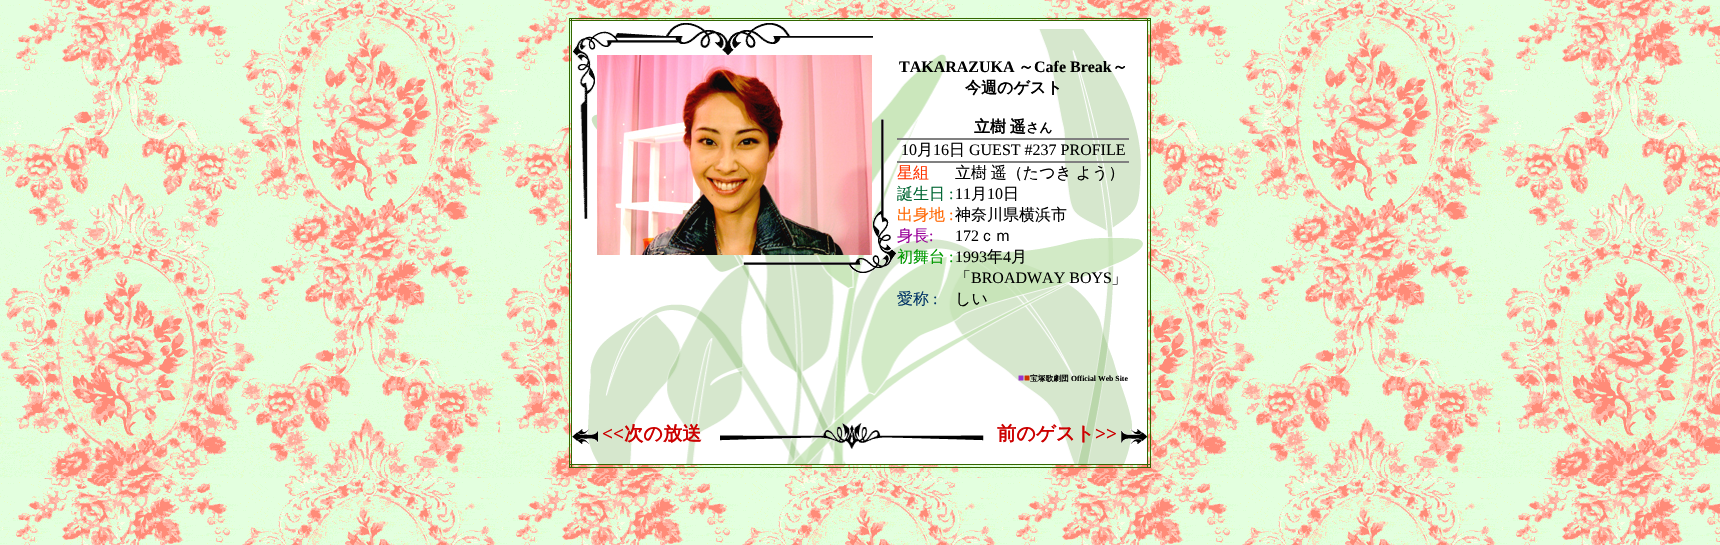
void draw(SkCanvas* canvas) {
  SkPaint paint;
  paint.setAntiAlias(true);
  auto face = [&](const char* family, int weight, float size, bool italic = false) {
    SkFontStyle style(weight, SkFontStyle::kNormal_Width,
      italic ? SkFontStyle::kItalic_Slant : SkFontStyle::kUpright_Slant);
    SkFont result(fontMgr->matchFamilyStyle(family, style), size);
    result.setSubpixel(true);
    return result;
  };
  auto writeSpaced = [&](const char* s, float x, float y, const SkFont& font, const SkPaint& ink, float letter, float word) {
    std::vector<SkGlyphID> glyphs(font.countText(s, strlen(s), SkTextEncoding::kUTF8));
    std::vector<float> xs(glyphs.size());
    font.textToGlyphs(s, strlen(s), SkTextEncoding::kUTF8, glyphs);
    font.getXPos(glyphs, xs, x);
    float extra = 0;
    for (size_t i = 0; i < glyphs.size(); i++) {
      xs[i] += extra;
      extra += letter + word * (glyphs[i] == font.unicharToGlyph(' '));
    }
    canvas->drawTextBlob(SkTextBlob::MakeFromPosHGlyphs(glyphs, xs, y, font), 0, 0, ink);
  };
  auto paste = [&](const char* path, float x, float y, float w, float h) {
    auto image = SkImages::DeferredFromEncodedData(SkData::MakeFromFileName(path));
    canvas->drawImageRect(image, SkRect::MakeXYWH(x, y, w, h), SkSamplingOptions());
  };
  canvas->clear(0xffffffff);
  paste("img/1.png", 0, 0, 1720, 545);
  {
    const struct { float x, y, w, h; SkColor color; } items[] = {
      {569, 18, 582, 1, 0xff336600},
      {569, 20, 582, 1, 0xff336600},
      {1147, 18, 1, 450, 0xff336600},
      {1150, 18, 1, 450, 0xff336600},
      {569, 464, 582, 1, 0xff336600},
      {569, 467, 582, 1, 0xff336600},
      {569, 18, 1, 450, 0xff336600},
      {571, 18, 1, 450, 0xff336600},
    };
    for (auto [x, y, w, h, color] : items) {
      paint.setColor(color);
      canvas->drawRect(SkRect::MakeXYWH(x, y, w, h), paint);
    }
  }
  paste("img/2.png", 572, 21, 575, 443);
  paste("img/3.png", 573, 23, 299, 32);
  paste("img/4.png", 872, 36, 24, 219);
  paste("img/5.png", 575, 55, 20, 164);
  paste("img/6.png", 597, 55, 275, 200);
  paste("img/7.png", 743, 255, 152, 18);
  {
    const struct { float x, y, w, h; SkColor color; } items[] = {
      {898, 139, 230, 1, 0xff808080},
      {897, 138, 232, 1, 0xff808080},
      {1128, 138, 1, 2, 0xff808080},
      {897, 138, 1, 2, 0xff808080},
      {898, 162, 230, 1, 0xff808080},
      {897, 161, 232, 1, 0xff808080},
      {1128, 161, 1, 2, 0xff808080},
      {897, 161, 1, 2, 0xff808080},
    };
    for (auto [x, y, w, h, color] : items) {
      paint.setColor(color);
      canvas->drawRect(SkRect::MakeXYWH(x, y, w, h), paint);
    }
  }
  paste("img/8.png", 572, 429, 26, 15);
  paste("img/9.png", 720, 423, 264, 26);
  paste("img/10.png", 1121, 429, 26, 15);
  auto f0 = face("Liberation Serif", 700, 16);
  paint.setColor(0xff000000);
  canvas->drawString("TAKARAZUKA", 899, 72, f0, paint);
  auto f1 = face("WenQuanYi Zen Hei", 700, 16);
  canvas->drawString("～", 1018, 72, f1, paint);
  canvas->drawString("Cafe Break", 1034, 72, f0, paint);
  canvas->drawString("～", 1112, 72, f1, paint);
  canvas->drawString("今週のゲスト", 965, 93, f1, paint);
  writeSpaced("立樹 遥", 974, 132, f1, paint, 0, -1);
  auto f2 = face("WenQuanYi Zen Hei", 700, 13);
  canvas->drawString("さん", 1026, 132, f2, paint);
  auto f3 = face("Liberation Serif", 400, 16);
  canvas->drawString("10", 901, 155, f3, paint);
  auto f4 = face("WenQuanYi Zen Hei", 500, 16);
  canvas->drawString("月", 917, 155, f4, paint);
  canvas->drawString("16", 933, 155, f3, paint);
  canvas->drawString("日", 949, 155, f4, paint);
  canvas->drawString("GUEST #237 PROFILE", 969, 155, f3, paint);
  paint.setColor(0xffff3300);
  canvas->drawString("星組", 897, 178, f4, paint);
  paint.setColor(0xff000000);
  writeSpaced("立樹 遥（たつき よう）", 955, 178, f4, paint, 0, -1);
  paint.setColor(0xff006633);
  canvas->drawString("誕生日", 897, 199, f4, paint);
  canvas->drawString(":", 949, 199, f3, paint);
  paint.setColor(0xff000000);
  canvas->drawString("11", 955, 199, f3, paint);
  canvas->drawString("月", 971, 199, f4, paint);
  canvas->drawString("10", 987, 199, f3, paint);
  canvas->drawString("日", 1003, 199, f4, paint);
  paint.setColor(0xffff6600);
  canvas->drawString("出身地", 897, 220, f4, paint);
  canvas->drawString(":", 949, 220, f3, paint);
  paint.setColor(0xff000000);
  canvas->drawString("神奈川県横浜市", 955, 220, f4, paint);
  paint.setColor(0xff990099);
  canvas->drawString("身長", 897, 241, f4, paint);
  canvas->drawString(":", 929, 241, f3, paint);
  paint.setColor(0xff000000);
  canvas->drawString("172", 955, 241, f3, paint);
  canvas->drawString("ｃｍ", 979, 241, f4, paint);
  paint.setColor(0xff009900);
  canvas->drawString("初舞台", 897, 262, f4, paint);
  canvas->drawString(":", 949, 262, f3, paint);
  paint.setColor(0xff000000);
  canvas->drawString("1993", 955, 262, f3, paint);
  canvas->drawString("年", 987, 262, f4, paint);
  canvas->drawString("4", 1003, 262, f3, paint);
  canvas->drawString("月", 1011, 262, f4, paint);
  canvas->drawString("「", 955, 283, f4, paint);
  canvas->drawString("BROADWAY BOYS", 971, 283, f3, paint);
  canvas->drawString("」", 1111, 283, f4, paint);
  paint.setColor(0xff003366);
  canvas->drawString("愛称", 897, 304, f4, paint);
  canvas->drawString(":", 933, 304, f3, paint);
  paint.setColor(0xff000000);
  canvas->drawString("しい", 955, 304, f4, paint);
  auto f5 = face("Liberation Serif", 700, 10);
  paint.setColor(0xff9933cc);
  canvas->drawString("■", 1018, 381, f5, paint);
  paint.setColor(0xffcc3300);
  canvas->drawString("■", 1024, 381, f5, paint);
  auto f6 = face("WenQuanYi Zen Hei", 700, 7.75f);
  paint.setColor(0xff000000);
  canvas->drawString("宝塚歌劇団", 1030, 381, f6, paint);
  auto f7 = face("Liberation Serif", 700, 7.75f);
  canvas->drawString("Official Web Site", 1071, 381, f7, paint);
  auto f8 = face("Liberation Serif", 700, 19.25f);
  paint.setColor(0xffcc0000);
  canvas->drawString("<<", 602, 440, f8, paint);
  auto f9 = face("WenQuanYi Zen Hei", 700, 19.25f);
  canvas->drawString("次の放送", 624, 440, f9, paint);
  canvas->drawString("前のゲスト", 997, 440, f9, paint);
  canvas->drawString(">>", 1095, 440, f8, paint);
}
